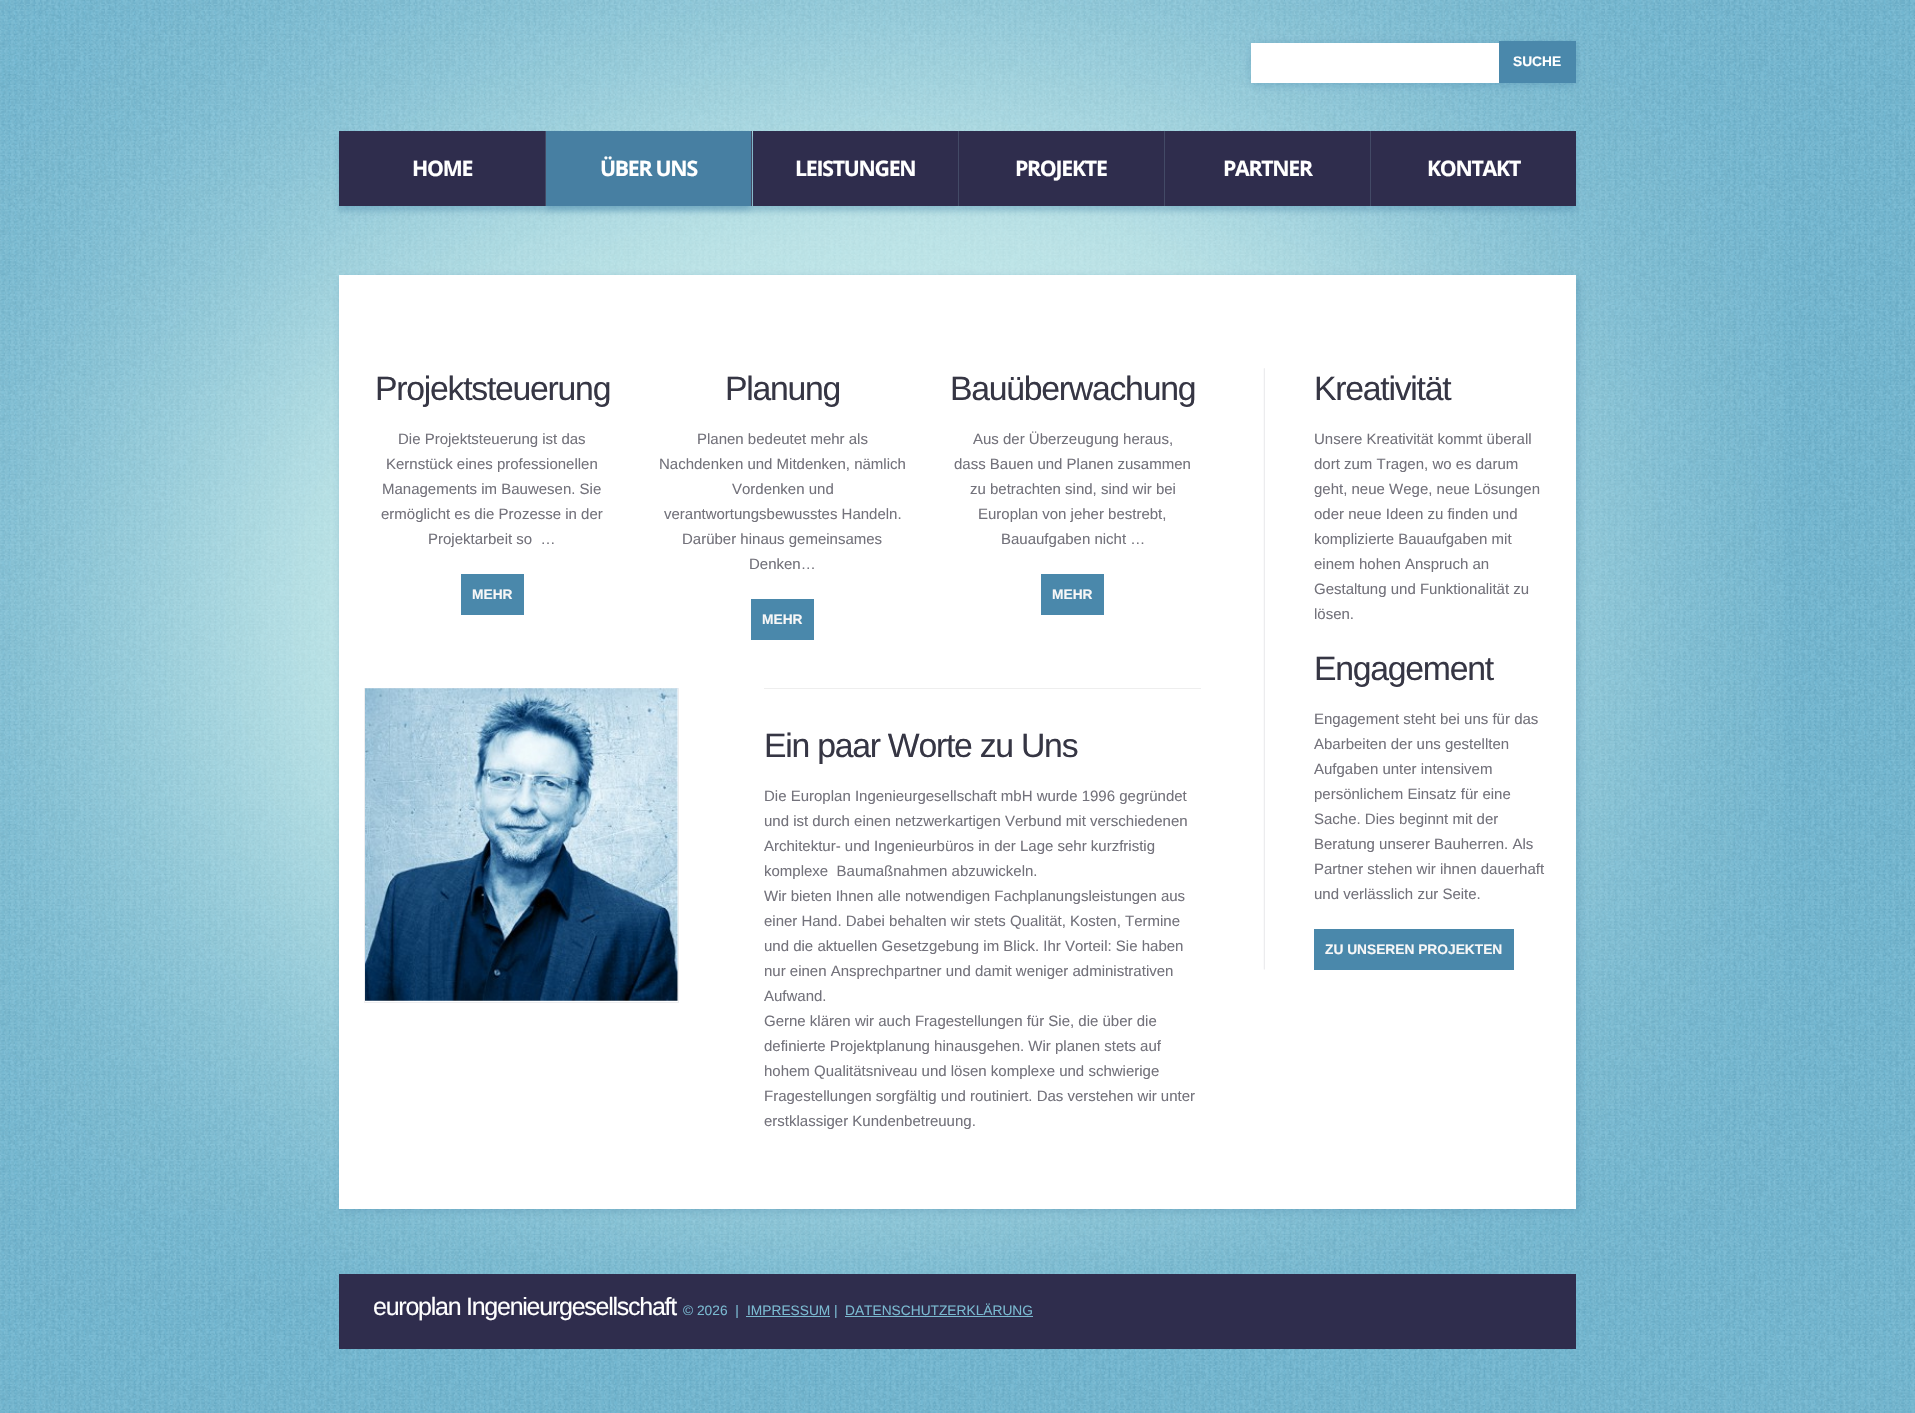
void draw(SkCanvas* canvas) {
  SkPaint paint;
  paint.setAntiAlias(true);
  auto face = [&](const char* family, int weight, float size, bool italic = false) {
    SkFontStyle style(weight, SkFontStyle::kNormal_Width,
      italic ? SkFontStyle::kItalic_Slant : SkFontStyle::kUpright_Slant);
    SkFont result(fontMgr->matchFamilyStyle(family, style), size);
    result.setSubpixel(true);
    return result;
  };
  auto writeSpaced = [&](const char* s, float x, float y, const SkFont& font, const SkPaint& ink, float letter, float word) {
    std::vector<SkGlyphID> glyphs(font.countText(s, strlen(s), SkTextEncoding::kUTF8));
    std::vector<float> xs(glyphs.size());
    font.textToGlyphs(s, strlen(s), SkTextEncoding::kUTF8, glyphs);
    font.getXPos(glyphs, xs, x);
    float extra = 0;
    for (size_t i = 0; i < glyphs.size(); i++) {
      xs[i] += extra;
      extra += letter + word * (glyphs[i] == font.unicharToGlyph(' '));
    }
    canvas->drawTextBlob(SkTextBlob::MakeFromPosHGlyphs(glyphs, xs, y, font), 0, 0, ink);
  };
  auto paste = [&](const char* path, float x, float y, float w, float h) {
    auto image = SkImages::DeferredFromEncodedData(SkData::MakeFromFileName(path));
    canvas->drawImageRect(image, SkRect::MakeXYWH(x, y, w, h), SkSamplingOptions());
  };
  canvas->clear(0xffffffff);
  paste("img/1.png", 0, 0, 1915, 1413);
  paste("img/2.png", 0, 0, 1785, 1291);
  paint.setColor(0x664a88ab);
  paint.setMaskFilter(SkMaskFilter::MakeBlur(kNormal_SkBlurStyle, 4));
  canvas->drawRect(SkRect::MakeXYWH(1251, 44, 325, 41), paint);
  paint.setMaskFilter(nullptr);
  paint.setColor(0xffffffff);
  canvas->drawRect(SkRect::MakeXYWH(1251, 43, 248, 40), paint);
  paint.setColor(0xff4a88ab);
  canvas->drawRect(SkRect::MakeXYWH(1499, 41, 77, 42), paint);
  paint.setColor(0x664a88ab);
  paint.setMaskFilter(SkMaskFilter::MakeBlur(kNormal_SkBlurStyle, 3));
  canvas->drawRect(SkRect::MakeXYWH(339, 136, 206, 75), paint);
  paint.setMaskFilter(nullptr);
  paint.setColor(0x994a88ab);
  paint.setMaskFilter(SkMaskFilter::MakeBlur(kNormal_SkBlurStyle, 3));
  canvas->drawRect(SkRect::MakeXYWH(545, 136, 206, 75), paint);
  paint.setMaskFilter(nullptr);
  paint.setColor(0xff2f2d4d);
  canvas->drawRect(SkRect::MakeXYWH(339, 131, 206, 75), paint);
  paint.setColor(0xff434a66);
  canvas->drawRect(SkRect::MakeXYWH(545, 131, 1, 75), paint);
  paint.setColor(0x664a88ab);
  paint.setMaskFilter(SkMaskFilter::MakeBlur(kNormal_SkBlurStyle, 3));
  canvas->drawRect(SkRect::MakeXYWH(751, 136, 207, 75), paint);
  paint.setMaskFilter(nullptr);
  paint.setColor(0xff477fa2);
  canvas->drawRect(SkRect::MakeXYWH(546, 131, 205, 75), paint);
  paint.setColor(0xff434a66);
  canvas->drawRect(SkRect::MakeXYWH(751, 131, 1, 75), paint);
  paint.setColor(0x664a88ab);
  paint.setMaskFilter(SkMaskFilter::MakeBlur(kNormal_SkBlurStyle, 3));
  canvas->drawRect(SkRect::MakeXYWH(958, 136, 206, 75), paint);
  paint.setMaskFilter(nullptr);
  paint.setColor(0xff2f2d4d);
  canvas->drawRect(SkRect::MakeXYWH(753, 131, 205, 75), paint);
  paint.setColor(0xff434a66);
  canvas->drawRect(SkRect::MakeXYWH(958, 131, 1, 75), paint);
  paint.setColor(0x664a88ab);
  paint.setMaskFilter(SkMaskFilter::MakeBlur(kNormal_SkBlurStyle, 3));
  canvas->drawRect(SkRect::MakeXYWH(1164, 136, 206, 75), paint);
  paint.setMaskFilter(nullptr);
  paint.setColor(0xff2f2d4d);
  canvas->drawRect(SkRect::MakeXYWH(959, 131, 205, 75), paint);
  paint.setColor(0xff434a66);
  canvas->drawRect(SkRect::MakeXYWH(1164, 131, 1, 75), paint);
  paint.setColor(0x664a88ab);
  paint.setMaskFilter(SkMaskFilter::MakeBlur(kNormal_SkBlurStyle, 3));
  canvas->drawRect(SkRect::MakeXYWH(1370, 136, 206, 75), paint);
  paint.setMaskFilter(nullptr);
  {
    const struct { float x, y, w, h; SkColor color; } items[] = {
      {1165, 131, 205, 75, 0xff2f2d4d},
      {1370, 131, 1, 75, 0xff434a66},
      {1371, 131, 205, 75, 0xff2f2d4d},
    };
    for (auto [x, y, w, h, color] : items) {
      paint.setColor(color);
      canvas->drawRect(SkRect::MakeXYWH(x, y, w, h), paint);
    }
  }
  paint.setColor(0x664a88ab);
  paint.setMaskFilter(SkMaskFilter::MakeBlur(kNormal_SkBlurStyle, 4));
  canvas->drawRect(SkRect::MakeXYWH(341, 278, 1238, 933), paint);
  paint.setMaskFilter(nullptr);
  {
    const struct { float x, y, w, h; SkColor color; } items[] = {
      {339, 275, 1237, 934, 0xffffffff},
      {461, 574, 63, 41, 0xff4a88ab},
      {751, 599, 63, 41, 0xff4a88ab},
      {1041, 574, 63, 41, 0xff4a88ab},
    };
    for (auto [x, y, w, h, color] : items) {
      paint.setColor(color);
      canvas->drawRect(SkRect::MakeXYWH(x, y, w, h), paint);
    }
  }
  paint.setStroke(true);
  paint.setStrokeWidth(1);
  paint.setColor(0xffeeeef0);
  canvas->drawRect(SkRect::MakeXYWH(364.5f, 688.5f, 314, 314), paint);
  paste("img/3.png", 365, 688, 313, 313);
  paint.setStroke(false);
  paint.setColor(0xffeeeeee);
  canvas->drawRect(SkRect::MakeXYWH(764, 688, 437, 1), paint);
  paste("img/4.png", 1263, 368, 2, 602);
  {
    const struct { float x, y, w, h; SkColor color; } items[] = {
      {1314, 929, 200, 41, 0xff4a88ab},
      {339, 1274, 1237, 75, 0xff2f2d4d},
      {746, 1316, 84, 1, 0xff7ab9d0},
      {845, 1316, 188, 1, 0xff7ab9d0},
    };
    for (auto [x, y, w, h, color] : items) {
      paint.setColor(color);
      canvas->drawRect(SkRect::MakeXYWH(x, y, w, h), paint);
    }
  }
  auto f0 = face("Liberation Sans", 700, 13.75f);
  paint.setColor(0xffffffff);
  canvas->drawString("SUCHE", 1513, 66, f0, paint);
  auto f1 = face("Open Sans", 700, 21.25f);
  {
    const struct { const char* s; float x, y; } items[] = {
      {"HOME", 412, 176},
      {"ÜBER UNS", 600, 176},
      {"LEISTUNGEN", 795, 176},
      {"PROJEKTE", 1015, 176},
      {"PARTNER", 1223, 176},
      {"KONTAKT", 1427, 176},
    };
    for (auto [s, x, y] : items) {
      writeSpaced(s, x, y, f1, paint, -1.25f, 0);
    }
  }
  auto f2 = face("Liberation Sans", 400, 33.75f);
  paint.setColor(0xff363644);
  writeSpaced("Projektsteuerung", 375, 400, f2, paint, -1.25f, 0);
  auto f3 = face("Liberation Sans", 400, 15);
  paint.setColor(0xff73727b);
  {
    const struct { const char* s; float x, y; } items[] = {
      {"Die Projektsteuerung ist das", 398, 444},
      {"Kernstück eines professionellen", 386, 469},
      {"Managements im Bauwesen. Sie", 382, 494},
      {"ermöglicht es die Prozesse in der", 381, 519},
      {"Projektarbeit so  …", 428, 544},
    };
    for (auto [s, x, y] : items) {
      canvas->drawString(s, x, y, f3, paint);
    }
  }
  paint.setColor(0xfff7f7f7);
  canvas->drawString("MEHR", 472, 599, f0, paint);
  paint.setColor(0xff363644);
  writeSpaced("Planung", 725, 400, f2, paint, -1.25f, 0);
  paint.setColor(0xff73727b);
  {
    const struct { const char* s; float x, y; } items[] = {
      {"Planen bedeutet mehr als", 697, 444},
      {"Nachdenken und Mitdenken, nämlich", 659, 469},
      {"Vordenken und", 732, 494},
      {"verantwortungsbewusstes Handeln.", 664, 519},
      {"Darüber hinaus gemeinsames", 682, 544},
      {"Denken…", 749, 569},
    };
    for (auto [s, x, y] : items) {
      canvas->drawString(s, x, y, f3, paint);
    }
  }
  paint.setColor(0xfff7f7f7);
  canvas->drawString("MEHR", 762, 624, f0, paint);
  paint.setColor(0xff363644);
  writeSpaced("Bauüberwachung", 950, 400, f2, paint, -1.25f, 0);
  paint.setColor(0xff73727b);
  {
    const struct { const char* s; float x, y; } items[] = {
      {"Aus der Überzeugung heraus,", 973, 444},
      {"dass Bauen und Planen zusammen", 954, 469},
      {"zu betrachten sind, sind wir bei", 970, 494},
      {"Europlan von jeher bestrebt,", 978, 519},
      {"Bauaufgaben nicht …", 1001, 544},
    };
    for (auto [s, x, y] : items) {
      canvas->drawString(s, x, y, f3, paint);
    }
  }
  paint.setColor(0xfff7f7f7);
  canvas->drawString("MEHR", 1052, 599, f0, paint);
  paint.setColor(0xff363644);
  writeSpaced("Ein paar Worte zu Uns", 764, 757, f2, paint, -1.25f, 0);
  paint.setColor(0xff73727b);
  {
    const struct { const char* s; float x, y; } items[] = {
      {"Die Europlan Ingenieurgesellschaft mbH wurde 1996 gegründet", 764, 801},
      {"und ist durch einen netzwerkartigen Verbund mit verschiedenen", 764, 826},
      {"Architektur- und Ingenieurbüros in der Lage sehr kurzfristig", 764, 851},
      {"komplexe  Baumaßnahmen abzuwickeln.", 764, 876},
      {"Wir bieten Ihnen alle notwendigen Fachplanungsleistungen aus", 764, 901},
      {"einer Hand. Dabei behalten wir stets Qualität, Kosten, Termine", 764, 926},
      {"und die aktuellen Gesetzgebung im Blick. Ihr Vorteil: Sie haben", 764, 951},
      {"nur einen Ansprechpartner und damit weniger administrativen", 764, 976},
      {"Aufwand.", 764, 1001},
      {"Gerne klären wir auch Fragestellungen für Sie, die über die", 764, 1026},
      {"definierte Projektplanung hinausgehen. Wir planen stets auf", 764, 1051},
      {"hohem Qualitätsniveau und lösen komplexe und schwierige", 764, 1076},
      {"Fragestellungen sorgfältig und routiniert. Das verstehen wir unter", 764, 1101},
      {"erstklassiger Kundenbetreuung.", 764, 1126},
    };
    for (auto [s, x, y] : items) {
      canvas->drawString(s, x, y, f3, paint);
    }
  }
  paint.setColor(0xff363644);
  writeSpaced("Kreativität", 1314, 400, f2, paint, -1.25f, 0);
  paint.setColor(0xff73727b);
  {
    const struct { const char* s; float x, y; } items[] = {
      {"Unsere Kreativität kommt überall", 1314, 444},
      {"dort zum Tragen, wo es darum", 1314, 469},
      {"geht, neue Wege, neue Lösungen", 1314, 494},
      {"oder neue Ideen zu finden und", 1314, 519},
      {"komplizierte Bauaufgaben mit", 1314, 544},
      {"einem hohen Anspruch an", 1314, 569},
      {"Gestaltung und Funktionalität zu", 1314, 594},
      {"lösen.", 1314, 619},
    };
    for (auto [s, x, y] : items) {
      canvas->drawString(s, x, y, f3, paint);
    }
  }
  paint.setColor(0xff363644);
  writeSpaced("Engagement", 1314, 680, f2, paint, -1.25f, 0);
  paint.setColor(0xff73727b);
  {
    const struct { const char* s; float x, y; } items[] = {
      {"Engagement steht bei uns für das", 1314, 724},
      {"Abarbeiten der uns gestellten", 1314, 749},
      {"Aufgaben unter intensivem", 1314, 774},
      {"persönlichem Einsatz für eine", 1314, 799},
      {"Sache. Dies beginnt mit der", 1314, 824},
      {"Beratung unserer Bauherren. Als", 1314, 849},
      {"Partner stehen wir ihnen dauerhaft", 1314, 874},
      {"und verlässlich zur Seite.", 1314, 899},
    };
    for (auto [s, x, y] : items) {
      canvas->drawString(s, x, y, f3, paint);
    }
  }
  paint.setColor(0xfff7f7f7);
  canvas->drawString("ZU UNSEREN PROJEKTEN", 1325, 954, f0, paint);
  auto f4 = face("Liberation Sans", 400, 25);
  paint.setColor(0xffffffff);
  writeSpaced("europlan Ingenieurgesellschaft", 373, 1315, f4, paint, -1.25f, 0);
  auto f5 = face("Liberation Sans", 400, 13.75f);
  paint.setColor(0xff7ab9d0);
  {
    const struct { const char* s; float x, y; } items[] = {
      {"© 2026  |", 683, 1315},
      {"IMPRESSUM |", 747, 1315},
      {"DATENSCHUTZERKLÄRUNG", 845, 1315},
    };
    for (auto [s, x, y] : items) {
      canvas->drawString(s, x, y, f5, paint);
    }
  }
}
